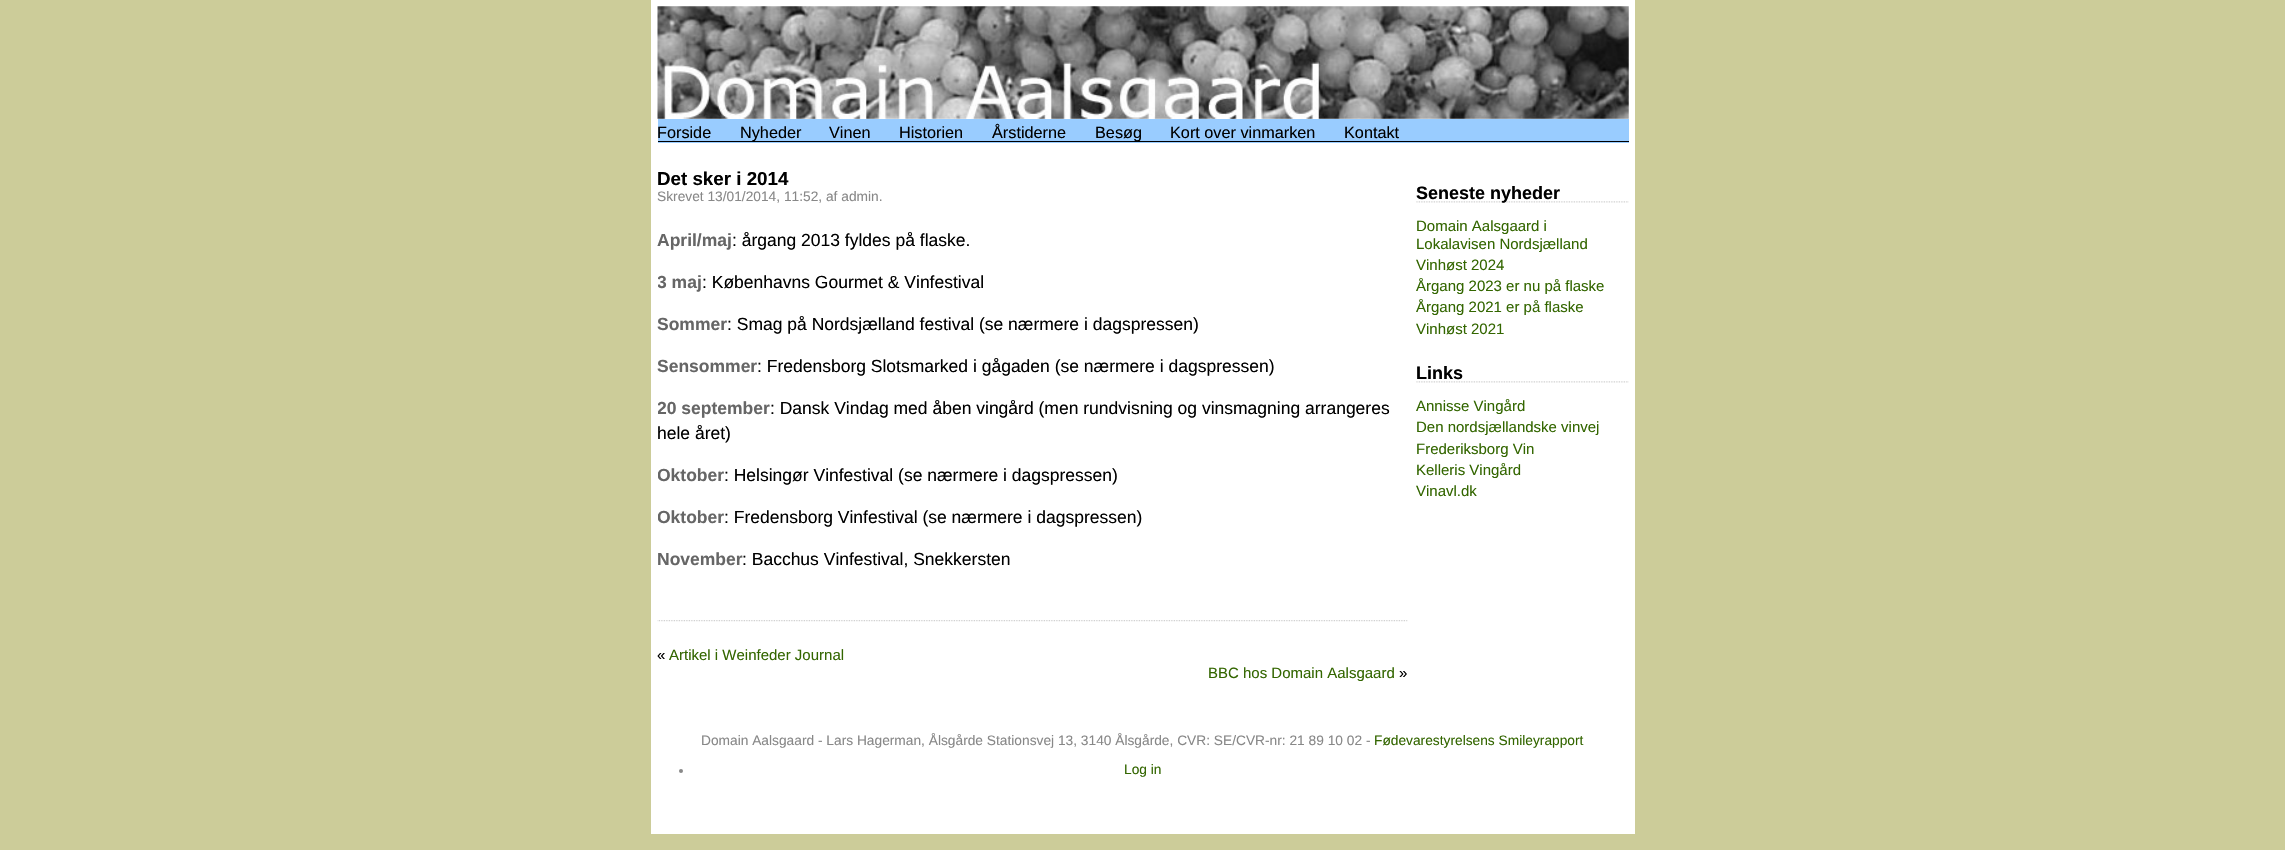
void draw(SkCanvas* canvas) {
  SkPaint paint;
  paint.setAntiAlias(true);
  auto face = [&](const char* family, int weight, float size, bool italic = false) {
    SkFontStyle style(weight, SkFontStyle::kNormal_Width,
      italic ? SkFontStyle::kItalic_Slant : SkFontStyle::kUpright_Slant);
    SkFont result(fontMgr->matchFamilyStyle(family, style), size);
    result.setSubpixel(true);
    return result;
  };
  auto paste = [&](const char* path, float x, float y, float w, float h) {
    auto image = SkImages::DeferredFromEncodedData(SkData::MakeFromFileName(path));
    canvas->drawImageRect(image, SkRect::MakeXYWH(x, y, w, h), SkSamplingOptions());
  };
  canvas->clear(0xffcccc99);
  paint.setColor(0xffffffff);
  canvas->drawRect(SkRect::MakeXYWH(651, 0, 984, 834), paint);
  paste("img/1.png", 657, 6, 972, 113);
  paint.setColor(0xff99ccff);
  canvas->drawRect(SkRect::MakeXYWH(658, 119, 971, 24), paint);
  paint.setColor(0xff000000);
  canvas->drawRect(SkRect::MakeXYWH(658, 141, 971, 1), paint);
  paste("img/2.png", 657, 620, 751, 2);
  paste("img/3.png", 1416, 201, 213, 2);
  paste("img/3.png", 1416, 381, 213, 2);
  paint.setColor(0xff888888);
  canvas->drawCircle(681, 771, 2, paint);
  auto f0 = face("Liberation Sans", 400, 16.25f);
  paint.setColor(0xff000000);
  {
    const struct { const char* s; float x, y; } items[] = {
      {"Forside", 657, 138},
      {"Nyheder", 740, 138},
      {"Vinen", 829, 138},
      {"Historien", 899, 138},
      {"Årstiderne", 992, 138},
      {"Besøg", 1095, 138},
      {"Kort over vinmarken", 1170, 138},
      {"Kontakt", 1344, 138},
    };
    for (auto [s, x, y] : items) {
      canvas->drawString(s, x, y, f0, paint);
    }
  }
  auto f1 = face("Liberation Sans", 700, 18.75f);
  canvas->drawString("Det sker i 2014", 657, 185, f1, paint);
  auto f2 = face("Liberation Sans", 400, 13.75f);
  paint.setColor(0xff888888);
  canvas->drawString("Skrevet 13/01/2014, 11:52, af admin.", 657, 201, f2, paint);
  auto f3 = face("Liberation Sans", 700, 17.5f);
  paint.setColor(0xff666666);
  canvas->drawString("April/maj", 657, 246, f3, paint);
  auto f4 = face("Liberation Sans", 400, 17.5f);
  paint.setColor(0xff000000);
  canvas->drawString(": årgang 2013 fyldes på flaske.", 732, 246, f4, paint);
  canvas->save();
  canvas->clipRect(SkRect::MakeXYWH(658, 143, 750, 478));
  paint.setColor(0xff666666);
  canvas->drawString("3 maj", 657, 288, f3, paint);
  canvas->restore();
  paint.setColor(0xff000000);
  canvas->drawString(": Københavns Gourmet & Vinfestival", 702, 288, f4, paint);
  paint.setColor(0xff666666);
  canvas->drawString("Sommer", 657, 330, f3, paint);
  paint.setColor(0xff000000);
  canvas->drawString(": Smag på Nordsjælland festival (se nærmere i dagspressen)", 727, 330, f4, paint);
  paint.setColor(0xff666666);
  canvas->drawString("Sensommer", 657, 372, f3, paint);
  paint.setColor(0xff000000);
  canvas->drawString(": Fredensborg Slotsmarked i gågaden (se nærmere i dagspressen)", 757, 372, f4, paint);
  canvas->save();
  canvas->clipRect(SkRect::MakeXYWH(658, 143, 750, 478));
  paint.setColor(0xff666666);
  canvas->drawString("20 september", 657, 414, f3, paint);
  canvas->restore();
  paint.setColor(0xff000000);
  canvas->drawString(": Dansk Vindag med åben vingård (men rundvisning og vinsmagning arrangeres", 770, 414, f4, paint);
  canvas->drawString("hele året)", 657, 439, f4, paint);
  canvas->save();
  canvas->clipRect(SkRect::MakeXYWH(658, 143, 750, 478));
  paint.setColor(0xff666666);
  canvas->drawString("Oktober", 657, 481, f3, paint);
  canvas->restore();
  paint.setColor(0xff000000);
  canvas->drawString(": Helsingør Vinfestival (se nærmere i dagspressen)", 724, 481, f4, paint);
  canvas->save();
  canvas->clipRect(SkRect::MakeXYWH(658, 143, 750, 478));
  paint.setColor(0xff666666);
  canvas->drawString("Oktober", 657, 523, f3, paint);
  canvas->restore();
  paint.setColor(0xff000000);
  canvas->drawString(": Fredensborg Vinfestival (se nærmere i dagspressen)", 724, 523, f4, paint);
  paint.setColor(0xff666666);
  canvas->drawString("November", 657, 565, f3, paint);
  paint.setColor(0xff000000);
  canvas->drawString(": Bacchus Vinfestival, Snekkersten", 742, 565, f4, paint);
  auto f5 = face("Liberation Sans", 400, 15);
  canvas->drawString("«", 657, 660, f5, paint);
  paint.setColor(0xff336600);
  canvas->drawString("Artikel i Weinfeder Journal", 669, 660, f5, paint);
  canvas->drawString("BBC hos Domain Aalsgaard", 1208, 678, f5, paint);
  paint.setColor(0xff000000);
  canvas->drawString("»", 1399, 678, f5, paint);
  auto f6 = face("Liberation Sans", 700, 18);
  canvas->drawString("Seneste nyheder", 1416, 199, f6, paint);
  paint.setColor(0xff336600);
  {
    const struct { const char* s; float x, y; } items[] = {
      {"Domain Aalsgaard i", 1416, 231},
      {"Lokalavisen Nordsjælland", 1416, 249},
      {"Vinhøst 2024", 1416, 270},
      {"Årgang 2023 er nu på flaske", 1416, 291},
      {"Årgang 2021 er på flaske", 1416, 312},
      {"Vinhøst 2021", 1416, 334},
    };
    for (auto [s, x, y] : items) {
      canvas->drawString(s, x, y, f5, paint);
    }
  }
  paint.setColor(0xff000000);
  canvas->drawString("Links", 1416, 379, f6, paint);
  paint.setColor(0xff336600);
  {
    const struct { const char* s; float x, y; } items[] = {
      {"Annisse Vingård", 1416, 411},
      {"Den nordsjællandske vinvej", 1416, 432},
      {"Frederiksborg Vin", 1416, 454},
      {"Kelleris Vingård", 1416, 475},
      {"Vinavl.dk", 1416, 496},
    };
    for (auto [s, x, y] : items) {
      canvas->drawString(s, x, y, f5, paint);
    }
  }
  paint.setColor(0xff888888);
  canvas->drawString("Domain Aalsgaard - Lars Hagerman, Ålsgårde Stationsvej 13, 3140 Ålsgårde, CVR: SE/CVR-nr: 21 89 10 02 -", 701, 745, f2, paint);
  paint.setColor(0xff336600);
  canvas->drawString("Fødevarestyrelsens Smileyrapport", 1374, 745, f2, paint);
  canvas->drawString("Log in", 1124, 774, f2, paint);
}
